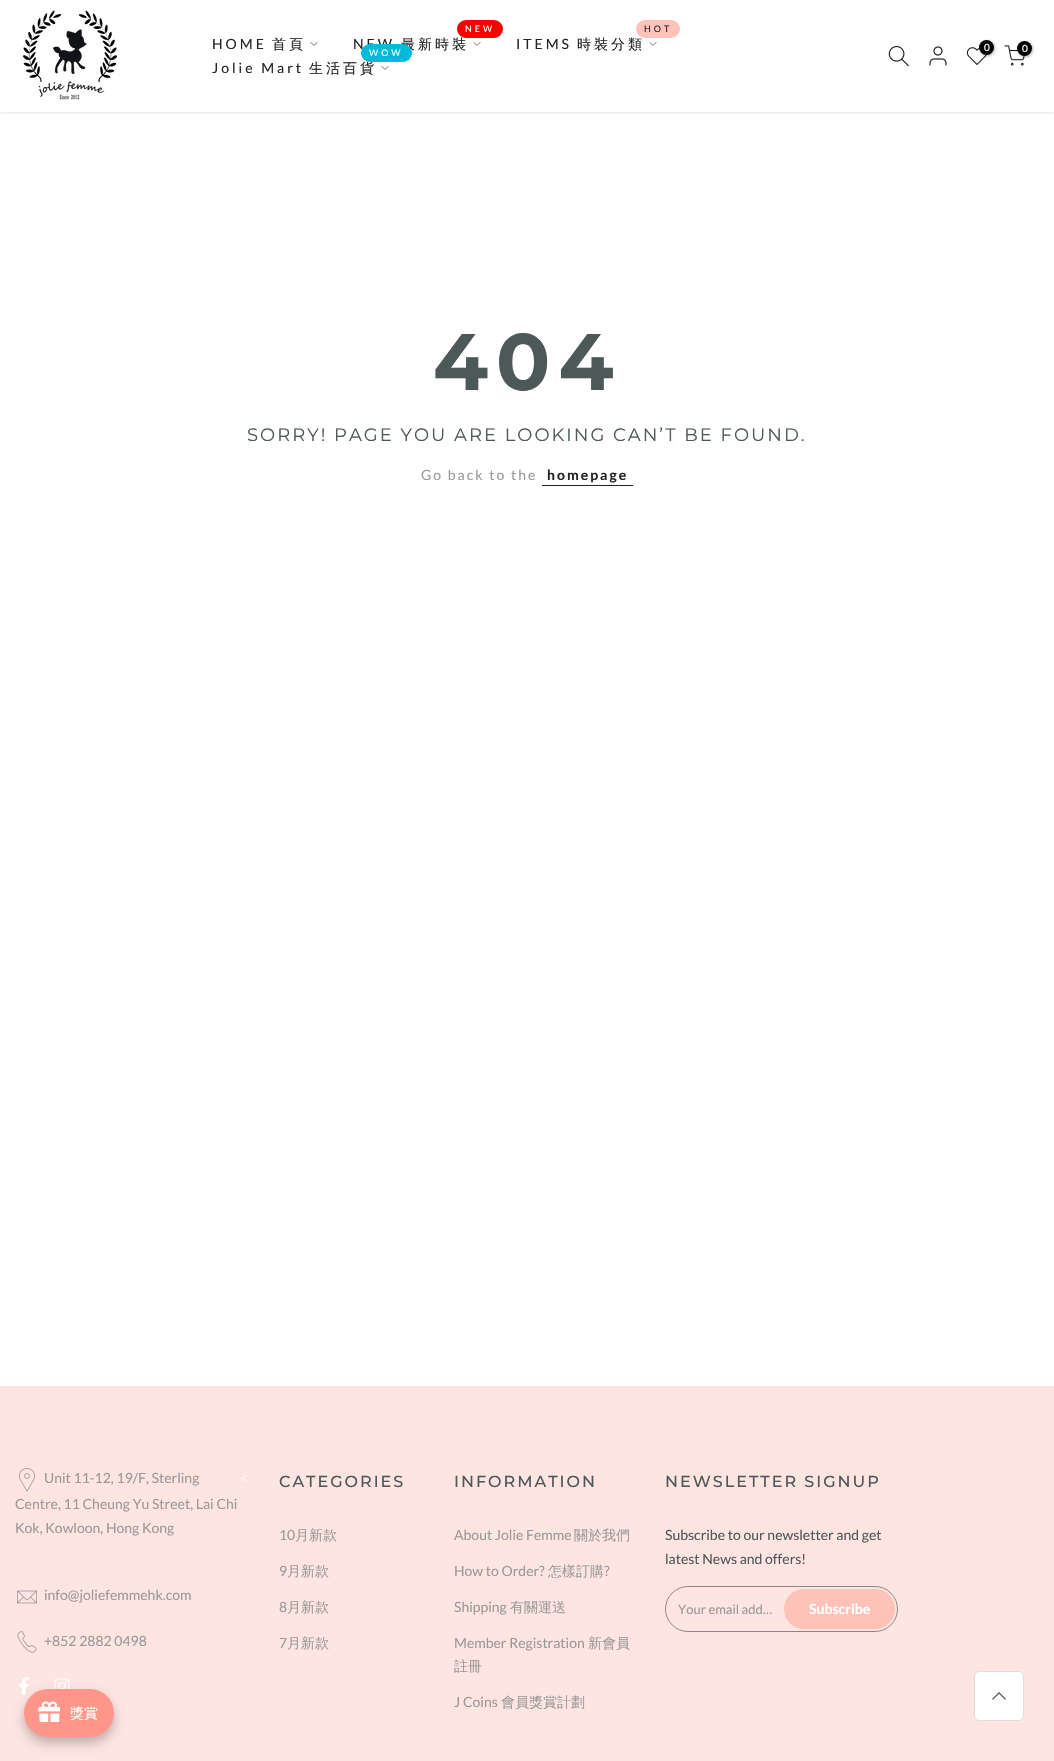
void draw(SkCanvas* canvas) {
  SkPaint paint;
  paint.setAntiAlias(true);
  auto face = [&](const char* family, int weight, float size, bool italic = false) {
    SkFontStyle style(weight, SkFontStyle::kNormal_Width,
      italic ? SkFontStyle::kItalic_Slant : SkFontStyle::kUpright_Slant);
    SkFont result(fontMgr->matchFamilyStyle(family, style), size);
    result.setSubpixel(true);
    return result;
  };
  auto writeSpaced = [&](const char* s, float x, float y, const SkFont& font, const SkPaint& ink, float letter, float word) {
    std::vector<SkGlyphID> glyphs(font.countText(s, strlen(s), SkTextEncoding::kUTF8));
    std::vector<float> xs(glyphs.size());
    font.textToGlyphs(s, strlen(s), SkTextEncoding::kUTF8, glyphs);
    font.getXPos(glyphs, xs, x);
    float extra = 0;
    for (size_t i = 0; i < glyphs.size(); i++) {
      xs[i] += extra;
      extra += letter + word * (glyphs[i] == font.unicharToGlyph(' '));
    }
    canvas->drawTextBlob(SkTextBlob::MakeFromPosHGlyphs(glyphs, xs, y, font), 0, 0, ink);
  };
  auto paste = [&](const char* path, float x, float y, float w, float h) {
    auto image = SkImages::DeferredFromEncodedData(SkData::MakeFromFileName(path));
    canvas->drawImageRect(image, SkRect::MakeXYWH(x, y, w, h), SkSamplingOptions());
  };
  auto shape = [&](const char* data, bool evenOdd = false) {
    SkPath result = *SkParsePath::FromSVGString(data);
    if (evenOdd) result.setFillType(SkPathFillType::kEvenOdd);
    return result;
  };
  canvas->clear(0xffffffff);
  canvas->save();
  canvas->clipRect(SkRect::MakeXYWH(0, 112, 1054, 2));
  paint.setColor(0x1a000000);
  paint.setMaskFilter(SkMaskFilter::MakeBlur(kNormal_SkBlurStyle, 1.5f));
  canvas->drawRect(SkRect::MakeXYWH(0, 1, 1054, 112), paint);
  paint.setMaskFilter(nullptr);
  canvas->restore();
  paste("img/1.png", 23, 10, 95, 90);
  paint.setStroke(true);
  paint.setStrokeWidth(0.8f);
  paint.setStrokeCap(SkPaint::kSquare_Cap);
  paint.setColor(0xff4e4e4e);
  canvas->drawPath(shape("M317 42.5L314 45.5L311 42.5"), paint);
  canvas->drawPath(shape("M480 42.5L477 45.5L474 42.5"), paint);
  canvas->drawPath(shape("M656 42.5L653 45.5L650 42.5"), paint);
  canvas->drawPath(shape("M388 66.5L385 69.5L382 66.5"), paint);
  paste("img/2.png", 888, 45, 21, 22);
  paste("img/3.png", 929, 46, 18, 20);
  paste("img/4.png", 966, 47, 21, 18);
  paint.setStroke(false);
  paint.setColor(0x4d000000);
  paint.setMaskFilter(SkMaskFilter::MakeBlur(kNormal_SkBlurStyle, 1.5f));
  canvas->drawRoundRect(SkRect::MakeXYWH(980, 41, 15, 15), 7.5f, 7.5f, paint);
  paint.setMaskFilter(nullptr);
  paint.setColor(0xff000000);
  canvas->drawCircle(986.5f, 47.5f, 7.5f, paint);
  paste("img/5.png", 1004, 45, 21, 21);
  paint.setColor(0x4d000000);
  paint.setMaskFilter(SkMaskFilter::MakeBlur(kNormal_SkBlurStyle, 1.5f));
  canvas->drawRoundRect(SkRect::MakeXYWH(1018, 42, 15, 15), 7.5f, 7.5f, paint);
  paint.setMaskFilter(nullptr);
  paint.setColor(0xff000000);
  canvas->drawCircle(1024.5f, 48.5f, 7.5f, paint);
  paint.setColor(0xff222222);
  canvas->drawRect(SkRect::MakeXYWH(542, 485, 91, 1), paint);
  paint.setColor(0xffffe5e2);
  canvas->drawRect(SkRect::MakeXYWH(0, 1386, 1054, 375), paint);
  paste("img/6.png", 19, 1468, 16, 24);
  paste("img/7.png", 17, 1590, 20, 14);
  paste("img/8.png", 17, 1631, 20, 22);
  paste("img/9.png", 19, 1677, 10, 18);
  paste("img/10.png", 54, 1678, 16, 11);
  paint.setStroke(true);
  paint.setStrokeWidth(1);
  paint.setStrokeCap(SkPaint::kButt_Cap);
  paint.setColor(0xff878787);
  canvas->drawRoundRect(SkRect::MakeXYWH(665.5f, 1586.5f, 232, 45), 22.5f, 22.5f, paint);
  paint.setStroke(false);
  paint.setColor(0xffffc2b9);
  canvas->drawRoundRect(SkRect::MakeXYWH(784, 1589, 111, 40), 20, 20, paint);
  paint.setColor(0x40000000);
  paint.setMaskFilter(SkMaskFilter::MakeBlur(kNormal_SkBlurStyle, 6));
  canvas->drawRoundRect(SkRect::MakeXYWH(24, 1695, 90, 48), 24, 24, paint);
  paint.setMaskFilter(nullptr);
  paint.setColor(0xffff9689);
  canvas->drawRoundRect(SkRect::MakeXYWH(24, 1689, 90, 48), 24, 24, paint);
  paste("img/11.png", 38, 1701, 22, 21);
  paint.setColor(0xffffffff);
  canvas->drawRoundRect(SkRect::MakeXYWH(974.5f, 1671.5f, 49, 49), 4.5f, 4.5f, paint);
  paint.setStroke(true);
  paint.setColor(0xffdddddd);
  canvas->drawRoundRect(SkRect::MakeXYWH(974.5f, 1671.5f, 49, 49), 4.5f, 4.5f, paint);
  paste("img/12.png", 992, 1692, 14, 8);
  auto f0 = face("Lato", 400, 14);
  paint.setStroke(false);
  paint.setColor(0xff222222);
  writeSpaced("HOME", 212, 49, f0, paint, 3, 0);
  auto f1 = face("WenQuanYi Zen Hei", 500, 14);
  writeSpaced("首頁", 272, 49, f1, paint, 3, 0);
  writeSpaced("NEW", 353, 49, f0, paint, 3, 0);
  writeSpaced("最新時裝", 401, 49, f1, paint, 3, 0);
  paint.setColor(0xfffa0000);
  canvas->drawRoundRect(SkRect::MakeXYWH(457, 20, 46, 18), 9, 9, paint);
  auto f2 = face("Lato", 400, 9);
  paint.setColor(0xffffffff);
  writeSpaced("NEW", 465, 32, f2, paint, 3, 0);
  paint.setColor(0xff222222);
  writeSpaced("ITEMS", 516, 49, f0, paint, 3, 0);
  writeSpaced("時裝分類", 577, 49, f1, paint, 3, 0);
  paint.setColor(0xffffc2b9);
  canvas->drawRoundRect(SkRect::MakeXYWH(636, 20, 44, 18), 9, 9, paint);
  paint.setColor(0xff222222);
  writeSpaced("HOT", 644, 32, f2, paint, 3, 0);
  writeSpaced("Jolie Mart", 212, 73, f0, paint, 3, 0);
  writeSpaced("生活百貨", 309, 73, f1, paint, 3, 0);
  paint.setColor(0xff00badb);
  canvas->drawRoundRect(SkRect::MakeXYWH(361, 44, 51, 18), 9, 9, paint);
  paint.setColor(0xffffffff);
  writeSpaced("WOW", 369, 56, f2, paint, 3, 0);
  auto f3 = face("Lato", 400, 10);
  canvas->drawString("0", 984, 51, f3, paint);
  canvas->drawString("0", 1022, 52, f3, paint);
  auto f4 = face("Montserrat", 700, 80);
  paint.setColor(0xff4d5959);
  writeSpaced("404", 433, 390, f4, paint, 8, 0);
  auto f5 = face("Montserrat", 400, 18);
  writeSpaced("SORRY! PAGE YOU ARE LOOKING CAN’T BE FOUND.", 247, 441, f5, paint, 2, 0);
  paint.setColor(0xff999999);
  writeSpaced("Go back to the", 421, 480, f0, paint, 2, 0);
  auto f6 = face("Lato", 700, 14);
  paint.setColor(0xff222222);
  writeSpaced("homepage", 547, 480, f6, paint, 2, 0);
  paint.setColor(0xff999999);
  {
    const struct { const char* s; float x, y; } items[] = {
      {"Unit 11-12, 19/F, Sterling", 44, 1483},
      {"Centre, 11 Cheung Yu Street, Lai Chi", 15, 1509},
      {"Kok, Kowloon, Hong Kong", 15, 1533},
    };
    for (auto [s, x, y] : items) {
      canvas->drawString(s, x, y, f0, paint);
    }
  }
  paint.setColor(0xffffffff);
  canvas->drawString("<", 240, 1483, f0, paint);
  paint.setColor(0xff999999);
  canvas->drawString("info@joliefemmehk.com", 44, 1600, f0, paint);
  canvas->drawString("+852 2882 0498", 44, 1646, f0, paint);
  auto f7 = face("Montserrat", 500, 16);
  paint.setColor(0xff4d5959);
  writeSpaced("CATEGORIES", 279, 1487, f7, paint, 2, 0);
  paint.setColor(0xff999999);
  canvas->drawString("10", 279, 1540, f0, paint);
  canvas->drawString("月新款", 295, 1540, f1, paint);
  canvas->drawString("9", 279, 1576, f0, paint);
  canvas->drawString("月新款", 287, 1576, f1, paint);
  canvas->drawString("8", 279, 1612, f0, paint);
  canvas->drawString("月新款", 287, 1612, f1, paint);
  canvas->drawString("7", 279, 1648, f0, paint);
  canvas->drawString("月新款", 287, 1648, f1, paint);
  paint.setColor(0xff4d5959);
  writeSpaced("INFORMATION", 454, 1487, f7, paint, 2, 0);
  paint.setColor(0xff999999);
  canvas->drawString("About Jolie Femme", 454, 1540, f0, paint);
  canvas->drawString("關於我們", 574, 1540, f1, paint);
  canvas->drawString("How to Order?", 454, 1576, f0, paint);
  canvas->drawString("怎樣訂購", 548, 1576, f1, paint);
  canvas->drawString("?", 604, 1576, f0, paint);
  canvas->drawString("Shipping", 454, 1612, f0, paint);
  canvas->drawString("有關運送", 510, 1612, f1, paint);
  canvas->drawString("Member Registration", 454, 1648, f0, paint);
  canvas->drawString("新會員", 588, 1648, f1, paint);
  canvas->drawString("註冊", 454, 1671, f1, paint);
  canvas->drawString("J Coins", 454, 1707, f0, paint);
  canvas->drawString("會員獎賞計劃", 501, 1707, f1, paint);
  paint.setColor(0xff4d5959);
  writeSpaced("NEWSLETTER SIGNUP", 665, 1487, f7, paint, 2, 0);
  canvas->drawString("Subscribe to our newsletter and get", 665, 1540, f0, paint);
  canvas->drawString("latest News and offers!", 665, 1564, f0, paint);
  auto f8 = face("Lato", 400, 13);
  paint.setColor(0xff999999);
  canvas->drawString("Your email add…", 678, 1614, f8, paint);
  paint.setColor(0xffffffff);
  canvas->drawString("Subscribe", 809, 1614, f6, paint);
  canvas->drawString("獎賞", 70, 1718, f1, paint);
}
